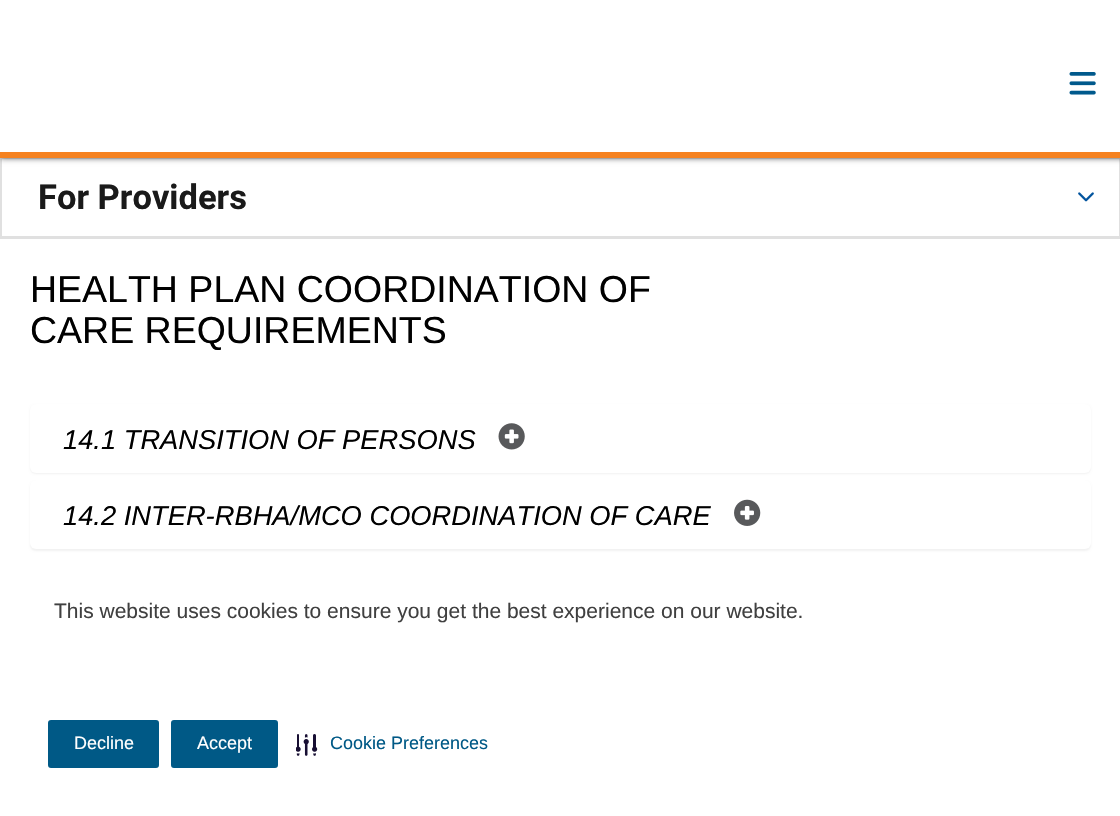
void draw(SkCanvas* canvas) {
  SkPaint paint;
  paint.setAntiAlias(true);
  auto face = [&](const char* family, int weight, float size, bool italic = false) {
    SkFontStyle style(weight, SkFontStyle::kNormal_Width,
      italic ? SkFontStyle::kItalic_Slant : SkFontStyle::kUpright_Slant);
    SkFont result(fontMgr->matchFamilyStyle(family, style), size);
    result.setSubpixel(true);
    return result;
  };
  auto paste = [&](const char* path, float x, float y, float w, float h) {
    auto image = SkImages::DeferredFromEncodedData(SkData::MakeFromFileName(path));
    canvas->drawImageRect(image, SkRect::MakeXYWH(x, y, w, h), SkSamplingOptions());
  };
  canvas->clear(0xffffffff);
  paint.setStroke(true);
  paint.setStrokeWidth(2);
  paint.setColor(0xffe0e0e0);
  canvas->drawRect(SkRect::MakeXYWH(1, 159, 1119, 79), paint);
  paint.setStroke(false);
  paint.setColor(0xffffffff);
  canvas->drawRect(SkRect::MakeXYWH(2, 159, 1117, 1), paint);
  paint.setColor(0xff58595b);
  paint.setMaskFilter(SkMaskFilter::MakeBlur(kNormal_SkBlurStyle, 3));
  canvas->drawRect(SkRect::MakeXYWH(0, 0, 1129, 158), paint);
  paint.setMaskFilter(nullptr);
  paint.setColor(0xffffffff);
  canvas->drawRect(SkRect::MakeXYWH(0, 0, 1120, 152), paint);
  paint.setColor(0xfff58220);
  canvas->drawRect(SkRect::MakeXYWH(0, 152, 1120, 6), paint);
  paste("img/1.png", 1069, 72, 27, 23);
  paint.setColor(0xffe0e0e0);
  canvas->drawRect(SkRect::MakeXYWH(2, 236, 1117, 1), paint);
  paste("img/2.png", 1078, 192, 16, 10);
  paint.setColor(0x0d000000);
  paint.setMaskFilter(SkMaskFilter::MakeBlur(kNormal_SkBlurStyle, 1));
  canvas->drawRoundRect(SkRect::MakeXYWH(30, 405, 1061, 69), 6, 6, paint);
  paint.setMaskFilter(nullptr);
  paint.setColor(0xffffffff);
  canvas->drawRoundRect(SkRect::MakeXYWH(30, 404, 1061, 69), 6, 6, paint);
  paste("img/3.png", 498, 423, 27, 27);
  paint.setColor(0x0d000000);
  paint.setMaskFilter(SkMaskFilter::MakeBlur(kNormal_SkBlurStyle, 1));
  canvas->drawRoundRect(SkRect::MakeXYWH(30, 482, 1061, 69), 6, 6, paint);
  paint.setMaskFilter(nullptr);
  paint.setColor(0xffffffff);
  canvas->drawRoundRect(SkRect::MakeXYWH(30, 480, 1061, 69), 6, 6, paint);
  paste("img/4.png", 734, 499, 27, 27);
  paint.setColor(0xff005986);
  canvas->drawRoundRect(SkRect::MakeXYWH(49, 721, 109, 46), 2, 2, paint);
  paint.setStroke(true);
  canvas->drawRoundRect(SkRect::MakeXYWH(49, 721, 109, 46), 2, 2, paint);
  paint.setStroke(false);
  canvas->drawRoundRect(SkRect::MakeXYWH(172, 721, 105, 46), 2, 2, paint);
  paint.setStroke(true);
  canvas->drawRoundRect(SkRect::MakeXYWH(172, 721, 105, 46), 2, 2, paint);
  paste("img/5.png", 296, 734, 22, 22);
  auto f0 = face("Roboto", 700, 34.5f);
  paint.setStroke(false);
  paint.setColor(0xff1a1a1a);
  canvas->drawString("For Providers", 38, 209, f0, paint);
  auto f1 = face("Liberation Sans", 400, 37.5f);
  paint.setColor(0xff000000);
  canvas->drawString("HEALTH PLAN COORDINATION OF", 30, 302, f1, paint);
  canvas->drawString("CARE REQUIREMENTS", 30, 343, f1, paint);
  auto f2 = face("Liberation Sans", 400, 27.3f, true);
  canvas->drawString("14.1 TRANSITION OF PERSONS", 63, 449, f2, paint);
  canvas->drawString("14.2 INTER-RBHA/MCO COORDINATION OF CARE", 63, 525, f2, paint);
  auto f3 = face("Liberation Sans", 400, 21);
  paint.setColor(0xff404040);
  canvas->drawString("This website uses cookies to ensure you get the best experience on our website.", 54, 618, f3, paint);
  auto f4 = face("Liberation Sans", 400, 18);
  paint.setColor(0xffffffff);
  canvas->drawString("Decline", 74, 749, f4, paint);
  canvas->drawString("Accept", 197, 749, f4, paint);
  paint.setColor(0xff005986);
  canvas->drawString("Cookie Preferences", 330, 749, f4, paint);
}
